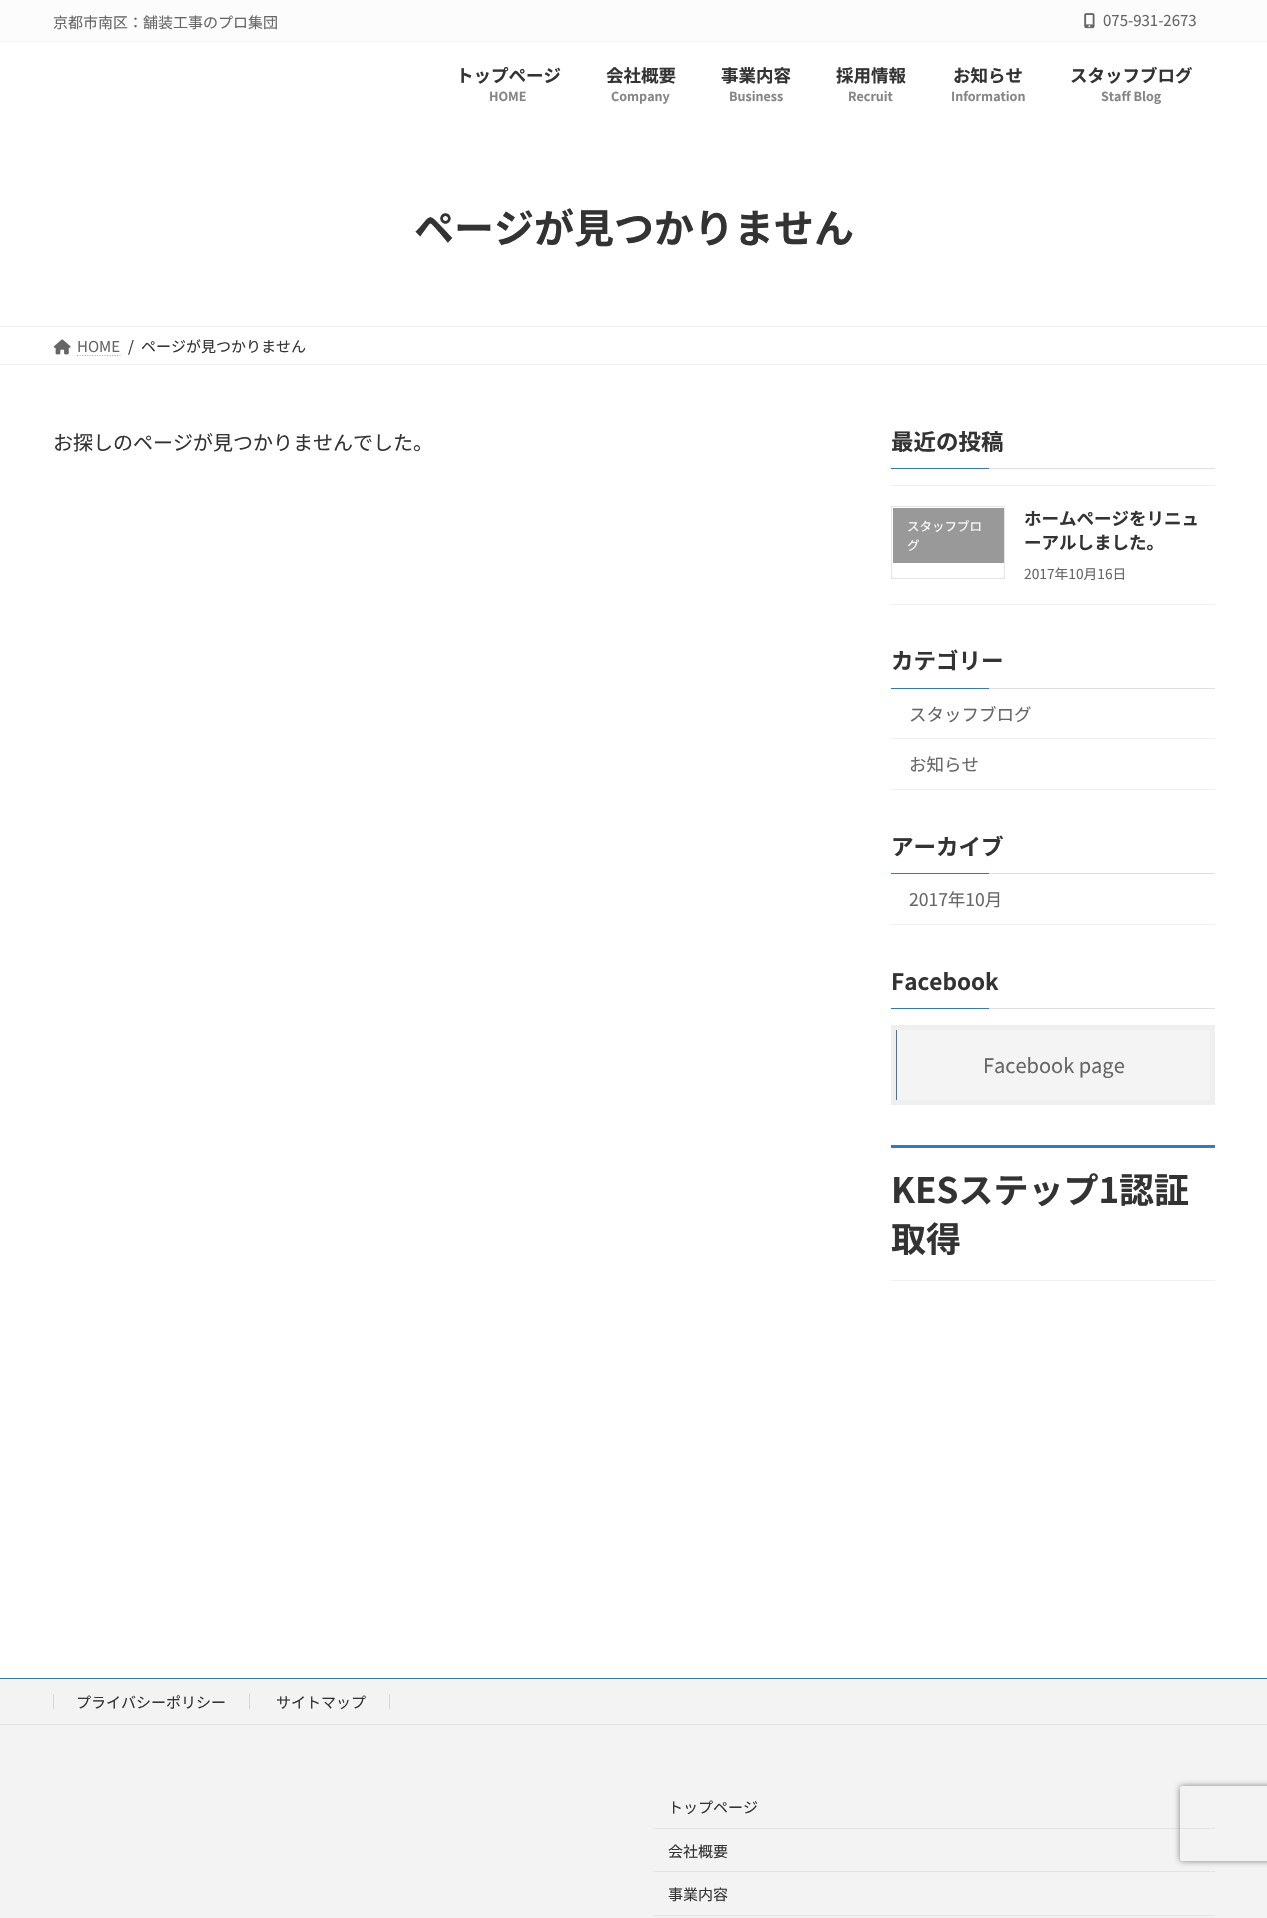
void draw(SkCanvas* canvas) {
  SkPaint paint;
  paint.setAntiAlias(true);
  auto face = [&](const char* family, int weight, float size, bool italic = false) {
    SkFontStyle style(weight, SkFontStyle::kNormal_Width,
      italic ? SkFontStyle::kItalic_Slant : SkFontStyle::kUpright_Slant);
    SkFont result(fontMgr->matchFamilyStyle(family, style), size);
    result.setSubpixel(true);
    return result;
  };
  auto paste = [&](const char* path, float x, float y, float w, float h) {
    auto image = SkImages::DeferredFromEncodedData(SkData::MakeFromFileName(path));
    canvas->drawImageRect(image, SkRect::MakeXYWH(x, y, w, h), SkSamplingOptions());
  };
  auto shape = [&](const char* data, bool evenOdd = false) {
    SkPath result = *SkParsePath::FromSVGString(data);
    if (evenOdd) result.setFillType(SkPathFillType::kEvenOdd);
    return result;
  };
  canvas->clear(0xffffffff);
  paint.setColor(0xfffcfcfc);
  canvas->drawRect(SkRect::MakeXYWH(0, 0, 1267, 43), paint);
  paint.setColor(0xfff5f5f5);
  canvas->drawRect(SkRect::MakeXYWH(0, 41, 1267, 1), paint);
  paste("img/1.png", 1084, 13, 11, 16);
  paint.setColor(0xfff0f0f0);
  canvas->drawRect(SkRect::MakeXYWH(0, 326, 1267, 1), paint);
  canvas->drawRect(SkRect::MakeXYWH(0, 364, 1267, 1), paint);
  paste("img/2.png", 53, 339, 18, 16);
  paint.setStroke(true);
  paint.setStrokeWidth(1.2f);
  paint.setColor(0xffb3b3b3);
  paint.setPathEffect(SkDashPathEffect::Make({{1.25f, 1.25f}}, 0));
  canvas->drawPath(shape("M77 355.5H120.5"), paint);
  paint.setPathEffect(nullptr);
  paint.setStroke(false);
  {
    const struct { float x, y, w, h; SkColor color; } items[] = {
      {989, 468, 226, 1, 0xffe0e0e0},
      {891, 468, 98, 1, 0xff337ab7},
      {891, 485, 324, 1, 0xfff0f0f0},
      {891, 604, 324, 1, 0xfff0f0f0},
    };
    for (auto [x, y, w, h, color] : items) {
      paint.setColor(color);
      canvas->drawRect(SkRect::MakeXYWH(x, y, w, h), paint);
    }
  }
  paint.setStroke(true);
  paint.setStrokeWidth(1);
  paint.setColor(0xffe5e5e5);
  canvas->drawRect(SkRect::MakeXYWH(891.5f, 506.5f, 113, 72), paint);
  paint.setStroke(false);
  {
    const struct { float x, y, w, h; SkColor color; } items[] = {
      {893, 508, 111, 55, 0xff999999},
      {989, 688, 226, 1, 0xffe0e0e0},
      {891, 688, 98, 1, 0xff337ab7},
      {891, 738, 324, 1, 0xfff0f0f0},
      {891, 789, 324, 1, 0xfff0f0f0},
      {989, 873, 226, 1, 0xffe0e0e0},
      {891, 873, 98, 1, 0xff337ab7},
      {891, 924, 324, 1, 0xfff0f0f0},
      {989, 1008, 226, 1, 0xffe0e0e0},
      {891, 1008, 98, 1, 0xff337ab7},
    };
    for (auto [x, y, w, h, color] : items) {
      paint.setColor(color);
      canvas->drawRect(SkRect::MakeXYWH(x, y, w, h), paint);
    }
  }
  paint.setStroke(true);
  paint.setStrokeWidth(5);
  paint.setColor(0xffefefef);
  canvas->drawRect(SkRect::MakeXYWH(893.5f, 1027.5f, 319, 75), paint);
  paint.setStroke(false);
  {
    const struct { float x, y, w, h; SkColor color; } items[] = {
      {897, 1030, 313, 70, 0xfff4f4f4},
      {896, 1030, 1, 70, 0xff337ab7},
      {891, 1145, 324, 3, 0xff337ab7},
      {891, 1280, 324, 1, 0xfff0f0f0},
      {0, 1679, 1267, 239, 0xfff3f3f3},
      {0, 1678, 1267, 1, 0xff337ab7},
      {0, 1724, 1267, 1, 0xffe4e4e4},
      {249, 1694, 1, 15, 0xffd6d6d6},
      {53, 1694, 1, 15, 0xffd6d6d6},
      {389, 1694, 1, 15, 0xffd6d6d6},
      {653, 1828, 562, 1, 0xffe4e4e4},
      {653, 1871, 562, 1, 0xffe4e4e4},
      {653, 1915, 562, 1, 0xffe4e4e4},
    };
    for (auto [x, y, w, h, color] : items) {
      paint.setColor(color);
      canvas->drawRect(SkRect::MakeXYWH(x, y, w, h), paint);
    }
  }
  canvas->save();
  canvas->clipPath(shape("M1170 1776H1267V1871H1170ZM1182.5 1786H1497.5C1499 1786 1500 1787 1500 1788.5V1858.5C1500 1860 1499 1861 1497.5 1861H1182.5C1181 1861 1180 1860 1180 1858.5V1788.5C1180 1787 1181 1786 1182.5 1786Z", true), true);
  paint.setColor(0xff808080);
  paint.setMaskFilter(SkMaskFilter::MakeBlur(kNormal_SkBlurStyle, 3));
  canvas->drawRoundRect(SkRect::MakeXYWH(1180, 1786, 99, 75), 2.5f, 2.5f, paint);
  paint.setMaskFilter(nullptr);
  canvas->restore();
  auto f0 = face("Noto Sans JP", 400, 15);
  paint.setColor(0xff666666);
  canvas->drawString("京都市南区：舗装工事のプロ集団", 53, 28, f0, paint);
  canvas->drawString("075-931-2673", 1103, 26, f0, paint);
  auto f1 = face("Noto Sans JP", 700, 17.5f);
  paint.setColor(0xff333333);
  canvas->drawString("トップページ", 456, 82, f1, paint);
  auto f2 = face("Noto Sans JP", 700, 12.5f);
  paint.setColor(0xff858585);
  canvas->drawString("HOME", 489, 101, f2, paint);
  paint.setColor(0xff333333);
  canvas->drawString("会社概要", 606, 82, f1, paint);
  paint.setColor(0xff858585);
  canvas->drawString("Company", 611, 101, f2, paint);
  paint.setColor(0xff333333);
  canvas->drawString("事業内容", 721, 82, f1, paint);
  paint.setColor(0xff858585);
  canvas->drawString("Business", 729, 101, f2, paint);
  paint.setColor(0xff333333);
  canvas->drawString("採用情報", 836, 82, f1, paint);
  paint.setColor(0xff858585);
  canvas->drawString("Recruit", 848, 101, f2, paint);
  paint.setColor(0xff333333);
  canvas->drawString("お知らせ", 953, 82, f1, paint);
  paint.setColor(0xff858585);
  canvas->drawString("Information", 951, 101, f2, paint);
  paint.setColor(0xff333333);
  canvas->drawString("スタッフブログ", 1070, 82, f1, paint);
  paint.setColor(0xff858585);
  canvas->drawString("Staff Blog", 1101, 101, f2, paint);
  auto f3 = face("Noto Sans JP", 700, 40);
  paint.setColor(0xff333333);
  canvas->drawString("ページが見つかりません", 414, 243, f3, paint);
  paint.setColor(0xff666666);
  canvas->drawString("HOME", 77, 352, f0, paint);
  paint.setColor(0xff333333);
  canvas->drawString("/", 128, 352, f0, paint);
  canvas->drawString("ページが見つかりません", 141, 352, f0, paint);
  auto f4 = face("Noto Sans JP", 400, 20);
  canvas->drawString("お探しのページが見つかりませんでした。", 53, 450, f4, paint);
  auto f5 = face("Noto Sans JP", 700, 22.5f);
  canvas->drawString("最近の投稿", 891, 450, f5, paint);
  auto f6 = face("Noto Sans JP", 400, 12.5f);
  paint.setColor(0xffffffff);
  canvas->drawString("スタッフブロ", 907, 531, f6, paint);
  canvas->drawString("グ", 907, 550, f6, paint);
  paint.setColor(0xff333333);
  canvas->drawString("ホームページをリニュ", 1024, 525, f1, paint);
  canvas->drawString("ーアルしました。", 1024, 549, f1, paint);
  auto f7 = face("Noto Sans JP", 400, 13.75f);
  paint.setColor(0xff666666);
  canvas->drawString("2017年10月16日", 1024, 579, f7, paint);
  paint.setColor(0xff333333);
  canvas->drawString("カテゴリー", 891, 669, f5, paint);
  auto f8 = face("Noto Sans JP", 400, 17.5f);
  paint.setColor(0xff666666);
  canvas->drawString("スタッフブログ", 909, 721, f8, paint);
  canvas->drawString("お知らせ", 909, 771, f8, paint);
  paint.setColor(0xff333333);
  canvas->drawString("アーカイブ", 891, 855, f5, paint);
  paint.setColor(0xff666666);
  canvas->drawString("2017年10月", 909, 906, f8, paint);
  paint.setColor(0xff333333);
  canvas->drawString("Facebook", 891, 990, f5, paint);
  paint.setColor(0xff666666);
  canvas->drawString("Facebook page", 983, 1073, f4, paint);
  auto f9 = face("Noto Sans JP", 700, 35);
  paint.setColor(0xff333333);
  canvas->drawString("KESステップ1認証", 891, 1203, f9, paint);
  canvas->drawString("取得", 891, 1252, f9, paint);
  {
    const struct { const char* s; float x, y; } items[] = {
      {"プライバシーポリシー", 76, 1708},
      {"サイトマップ", 276, 1708},
      {"トップページ", 668, 1813},
      {"会社概要", 668, 1857},
      {"事業内容", 668, 1900},
    };
    for (auto [s, x, y] : items) {
      canvas->drawString(s, x, y, f0, paint);
    }
  }
}
